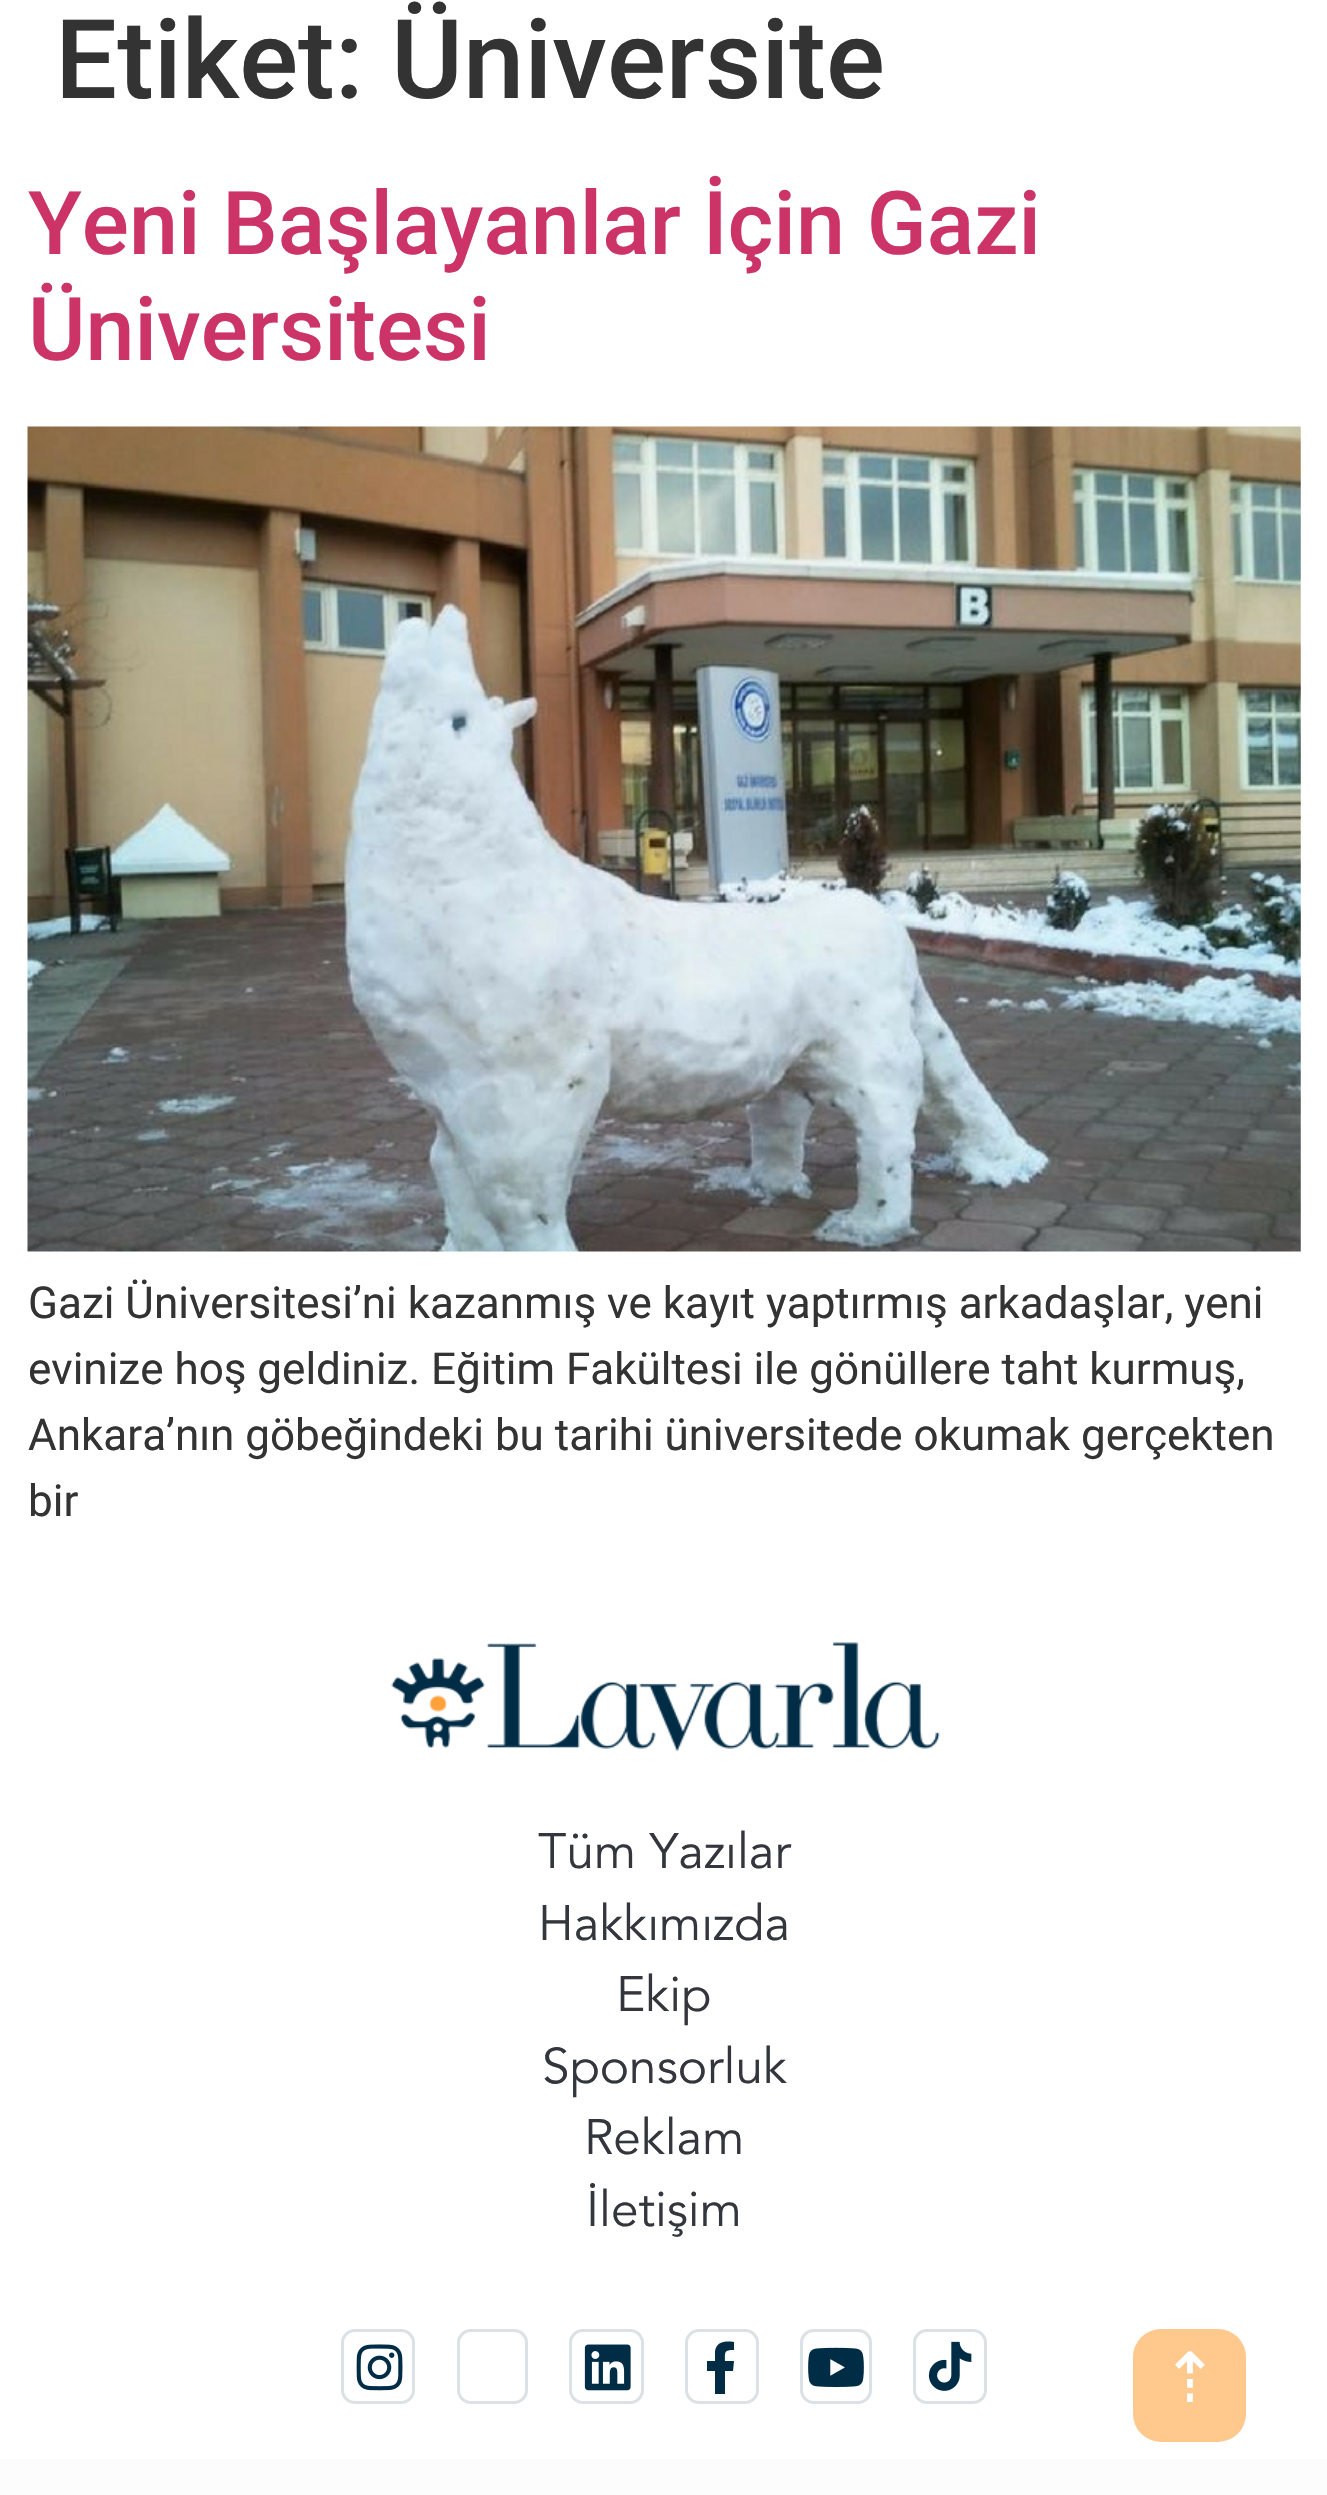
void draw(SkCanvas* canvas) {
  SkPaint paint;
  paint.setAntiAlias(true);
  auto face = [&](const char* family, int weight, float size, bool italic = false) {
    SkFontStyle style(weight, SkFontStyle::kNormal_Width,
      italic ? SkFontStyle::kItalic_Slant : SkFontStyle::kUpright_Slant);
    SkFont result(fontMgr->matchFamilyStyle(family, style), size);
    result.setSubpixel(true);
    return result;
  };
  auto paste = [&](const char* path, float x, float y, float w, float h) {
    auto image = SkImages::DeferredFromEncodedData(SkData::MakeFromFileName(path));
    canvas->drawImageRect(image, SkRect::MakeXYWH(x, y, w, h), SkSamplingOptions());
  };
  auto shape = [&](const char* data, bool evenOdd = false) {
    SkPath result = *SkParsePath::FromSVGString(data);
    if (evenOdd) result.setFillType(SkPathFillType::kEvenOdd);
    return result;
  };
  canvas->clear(0xffffffff);
  paste("img/1.png", 27, 426, 1274, 826);
  paste("img/2.png", 391, 1642, 549, 110);
  paint.setStroke(true);
  paint.setStrokeWidth(3);
  paint.setColor(0xffdbe1e5);
  canvas->drawRoundRect(SkRect::MakeXYWH(342.5f, 2330.5f, 71, 72), 12.5f, 12.5f, paint);
  paste("img/3.png", 356, 2344, 47, 47);
  canvas->drawRoundRect(SkRect::MakeXYWH(458.5f, 2330.5f, 68, 72), 12.5f, 12.5f, paint);
  canvas->drawRoundRect(SkRect::MakeXYWH(570.5f, 2330.5f, 72, 72), 12.5f, 12.5f, paint);
  paste("img/4.png", 584, 2344, 47, 47);
  canvas->drawRoundRect(SkRect::MakeXYWH(686.5f, 2330.5f, 71, 72), 12.5f, 12.5f, paint);
  paint.setStroke(false);
  paint.setColor(0xff002c46);
  canvas->drawPath(shape("M733 2371H725V2394H715V2371H707V2361H715V2351C717 2341 726 2341 734 2342V2350C724 2350 725 2352 725 2361H734Z"), paint);
  paint.setStroke(true);
  paint.setColor(0xffdbe1e5);
  canvas->drawRoundRect(SkRect::MakeXYWH(801.5f, 2330.5f, 69, 72), 12.5f, 12.5f, paint);
  paste("img/5.png", 808, 2347, 56, 40);
  canvas->drawRoundRect(SkRect::MakeXYWH(914.5f, 2330.5f, 71, 72), 12.5f, 12.5f, paint);
  paste("img/6.png", 928, 2341, 44, 50);
  paint.setStroke(false);
  paint.setColor(0xfffcfcfc);
  canvas->drawRect(SkRect::MakeXYWH(0, 2459, 1327, 36), paint);
  paint.setColor(0xffffc88c);
  canvas->drawRoundRect(SkRect::MakeXYWH(1133, 2329, 113, 113), 28, 28, paint);
  auto f0 = face("Roboto", 500, 110);
  paint.setColor(0xff333333);
  canvas->drawString("Etiket: Üniversite", 55, 98, f0, paint);
  auto f1 = face("Roboto", 500, 88);
  paint.setColor(0xffcc3366);
  canvas->drawString("Yeni Başlayanlar İçin Gazi", 28, 254, f1, paint);
  canvas->drawString("Üniversitesi", 28, 360, f1, paint);
  auto f2 = face("Roboto", 400, 44);
  paint.setColor(0xff333333);
  {
    const struct { const char* s; float x, y; } items[] = {
      {"Gazi Üniversitesi’ni kazanmış ve kayıt yaptırmış arkadaşlar, yeni", 28, 1318},
      {"evinize hoş geldiniz. Eğitim Fakültesi ile gönüllere taht kurmuş,", 28, 1384},
      {"Ankara’nın göbeğindeki bu tarihi üniversitede okumak gerçekten", 28, 1450},
      {"bir", 28, 1516},
    };
    for (auto [s, x, y] : items) {
      canvas->drawString(s, x, y, f2, paint);
    }
  }
  auto f3 = face("Avenir", 400, 49.5f);
  paint.setColor(0xff33373d);
  {
    const struct { const char* s; float x, y; } items[] = {
      {"Tüm Yazılar", 538, 1868},
      {"Hakkımızda", 538, 1940},
      {"Ekip", 616, 2011},
      {"Sponsorluk", 542, 2083},
      {"Reklam", 584, 2154},
      {"İletişim", 586, 2226},
    };
    for (auto [s, x, y] : items) {
      canvas->drawString(s, x, y, f3, paint);
    }
  }
  auto f4 = face("DejaVu Sans", 400, 69);
  paint.setColor(0xffffffff);
  canvas->drawString("⇡", 1161, 2402, f4, paint);
}
